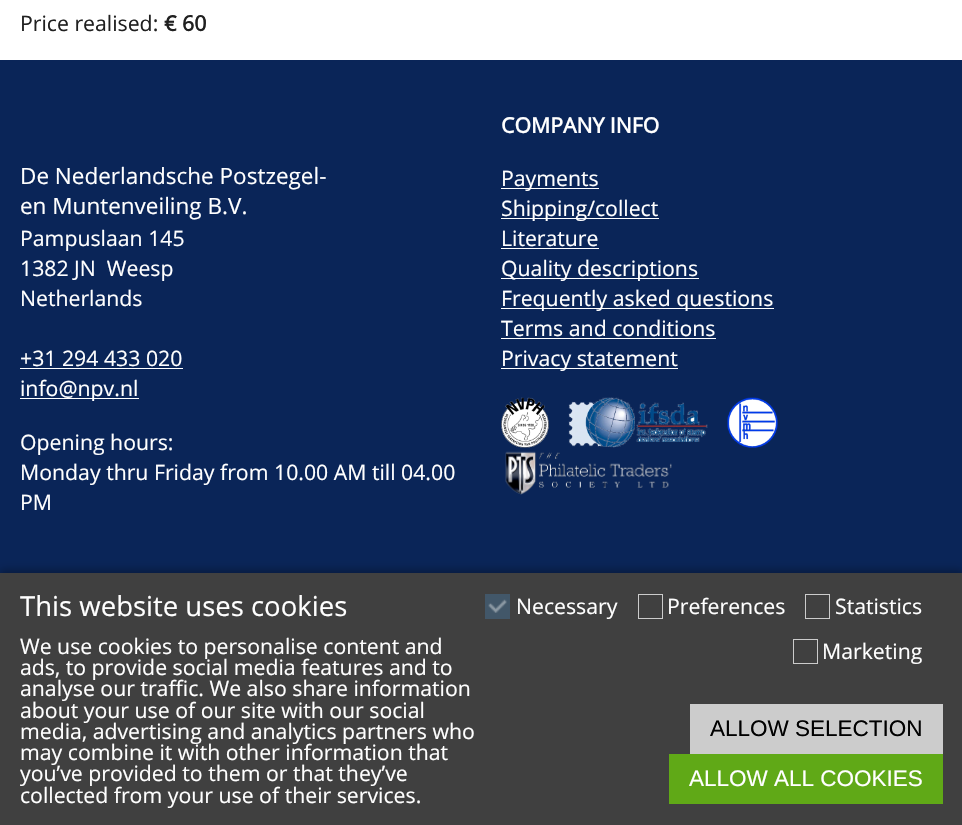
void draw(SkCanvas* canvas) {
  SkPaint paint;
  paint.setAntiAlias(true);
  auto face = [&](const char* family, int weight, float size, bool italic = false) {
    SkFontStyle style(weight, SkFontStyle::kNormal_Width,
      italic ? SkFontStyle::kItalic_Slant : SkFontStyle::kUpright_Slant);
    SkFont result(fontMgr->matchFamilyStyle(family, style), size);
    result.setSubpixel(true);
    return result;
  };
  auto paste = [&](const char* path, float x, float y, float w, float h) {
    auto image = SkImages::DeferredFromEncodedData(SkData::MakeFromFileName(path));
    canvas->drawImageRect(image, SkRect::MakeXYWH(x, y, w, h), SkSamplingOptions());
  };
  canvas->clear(0xffffffff);
  {
    const struct { float x, y, w, h; SkColor color; } items[] = {
      {0, 60, 962, 513, 0xff0a2558},
      {20, 368, 163, 1, 0xffffffff},
      {20, 398, 119, 1, 0xffffffff},
      {501, 188, 98, 1, 0xffffffff},
      {501, 218, 158, 1, 0xffffffff},
      {501, 248, 98, 1, 0xffffffff},
      {501, 278, 198, 1, 0xffffffff},
      {501, 308, 273, 1, 0xffffffff},
      {501, 338, 215, 1, 0xffffffff},
      {501, 368, 177, 1, 0xffffffff},
    };
    for (auto [x, y, w, h, color] : items) {
      paint.setColor(color);
      canvas->drawRect(SkRect::MakeXYWH(x, y, w, h), paint);
    }
  }
  paste("img/1.png", 501, 397, 48, 51);
  paste("img/2.png", 568, 397, 140, 51);
  paste("img/3.png", 727, 397, 51, 51);
  paste("img/4.png", 505, 447, 167, 48);
  paint.setColor(0x4d000000);
  paint.setMaskFilter(SkMaskFilter::MakeBlur(kNormal_SkBlurStyle, 4));
  canvas->drawRect(SkRect::MakeXYWH(0, 570, 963, 253), paint);
  paint.setMaskFilter(nullptr);
  paint.setColor(0xff404040);
  canvas->drawRect(SkRect::MakeXYWH(0, 573, 962, 252), paint);
  paint.setColor(0xff425769);
  canvas->drawRect(SkRect::MakeXYWH(485, 594, 25, 25), paint);
  paste("img/5.png", 488, 599, 19, 14);
  paint.setStroke(true);
  paint.setStrokeWidth(1);
  paint.setColor(0xffcccccc);
  canvas->drawRect(SkRect::MakeXYWH(638.5f, 594.5f, 24, 24), paint);
  canvas->drawRect(SkRect::MakeXYWH(805.5f, 594.5f, 24, 24), paint);
  canvas->drawRect(SkRect::MakeXYWH(793.5f, 639.5f, 24, 24), paint);
  paint.setStroke(false);
  canvas->drawRect(SkRect::MakeXYWH(690, 704, 253, 50), paint);
  paint.setColor(0xff60a917);
  canvas->drawRect(SkRect::MakeXYWH(669, 754, 274, 50), paint);
  auto f0 = face("Open Sans", 400, 21.25f);
  paint.setColor(0xff202020);
  canvas->drawString("Price realised:", 20, 31, f0, paint);
  auto f1 = face("Open Sans", 700, 21.25f);
  canvas->drawString("€ 60", 164, 31, f1, paint);
  auto f2 = face("Open Sans", 400, 22.5f);
  paint.setColor(0xffffffff);
  canvas->drawString("De Nederlandsche Postzegel-", 20, 184, f2, paint);
  canvas->drawString("en Muntenveiling B.V.", 20, 214, f2, paint);
  {
    const struct { const char* s; float x, y; } items[] = {
      {"Pampuslaan 145", 20, 246},
      {"1382 JN  Weesp", 20, 276},
      {"Netherlands", 20, 306},
      {"+31 294 433 020", 20, 366},
      {"info@npv.nl", 20, 396},
      {"Opening hours:", 20, 450},
      {"Monday thru Friday from 10.00 AM till 04.00", 20, 480},
      {"PM", 20, 510},
    };
    for (auto [s, x, y] : items) {
      canvas->drawString(s, x, y, f0, paint);
    }
  }
  canvas->drawString("COMPANY INFO", 501, 133, f1, paint);
  {
    const struct { const char* s; float x, y; } items[] = {
      {"Payments", 501, 186},
      {"Shipping/collect", 501, 216},
      {"Literature", 501, 246},
      {"Quality descriptions", 501, 276},
      {"Frequently asked questions", 501, 306},
      {"Terms and conditions", 501, 336},
      {"Privacy statement", 501, 366},
    };
    for (auto [s, x, y] : items) {
      canvas->drawString(s, x, y, f0, paint);
    }
  }
  auto f3 = face("Open Sans", 400, 27.5f);
  canvas->drawString("This website uses cookies", 20, 616, f3, paint);
  {
    const struct { const char* s; float x, y; } items[] = {
      {"We use cookies to personalise content and", 20, 654},
      {"ads, to provide social media features and to", 20, 675},
      {"analyse our traffic. We also share information", 20, 696},
      {"about your use of our site with our social", 20, 718},
      {"media, advertising and analytics partners who", 20, 739},
      {"may combine it with other information that", 20, 760},
      {"you’ve provided to them or that they’ve", 20, 781},
      {"collected from your use of their services.", 20, 803},
      {"Necessary", 516, 614},
      {"Preferences", 667, 614},
      {"Statistics", 835, 614},
      {"Marketing", 822, 659},
    };
    for (auto [s, x, y] : items) {
      canvas->drawString(s, x, y, f0, paint);
    }
  }
  auto f4 = face("Liberation Sans", 400, 22.5f);
  paint.setColor(0xff000000);
  canvas->drawString("ALLOW SELECTION", 710, 736, f4, paint);
  paint.setColor(0xffffffff);
  canvas->drawString("ALLOW ALL COOKIES", 689, 786, f4, paint);
}
